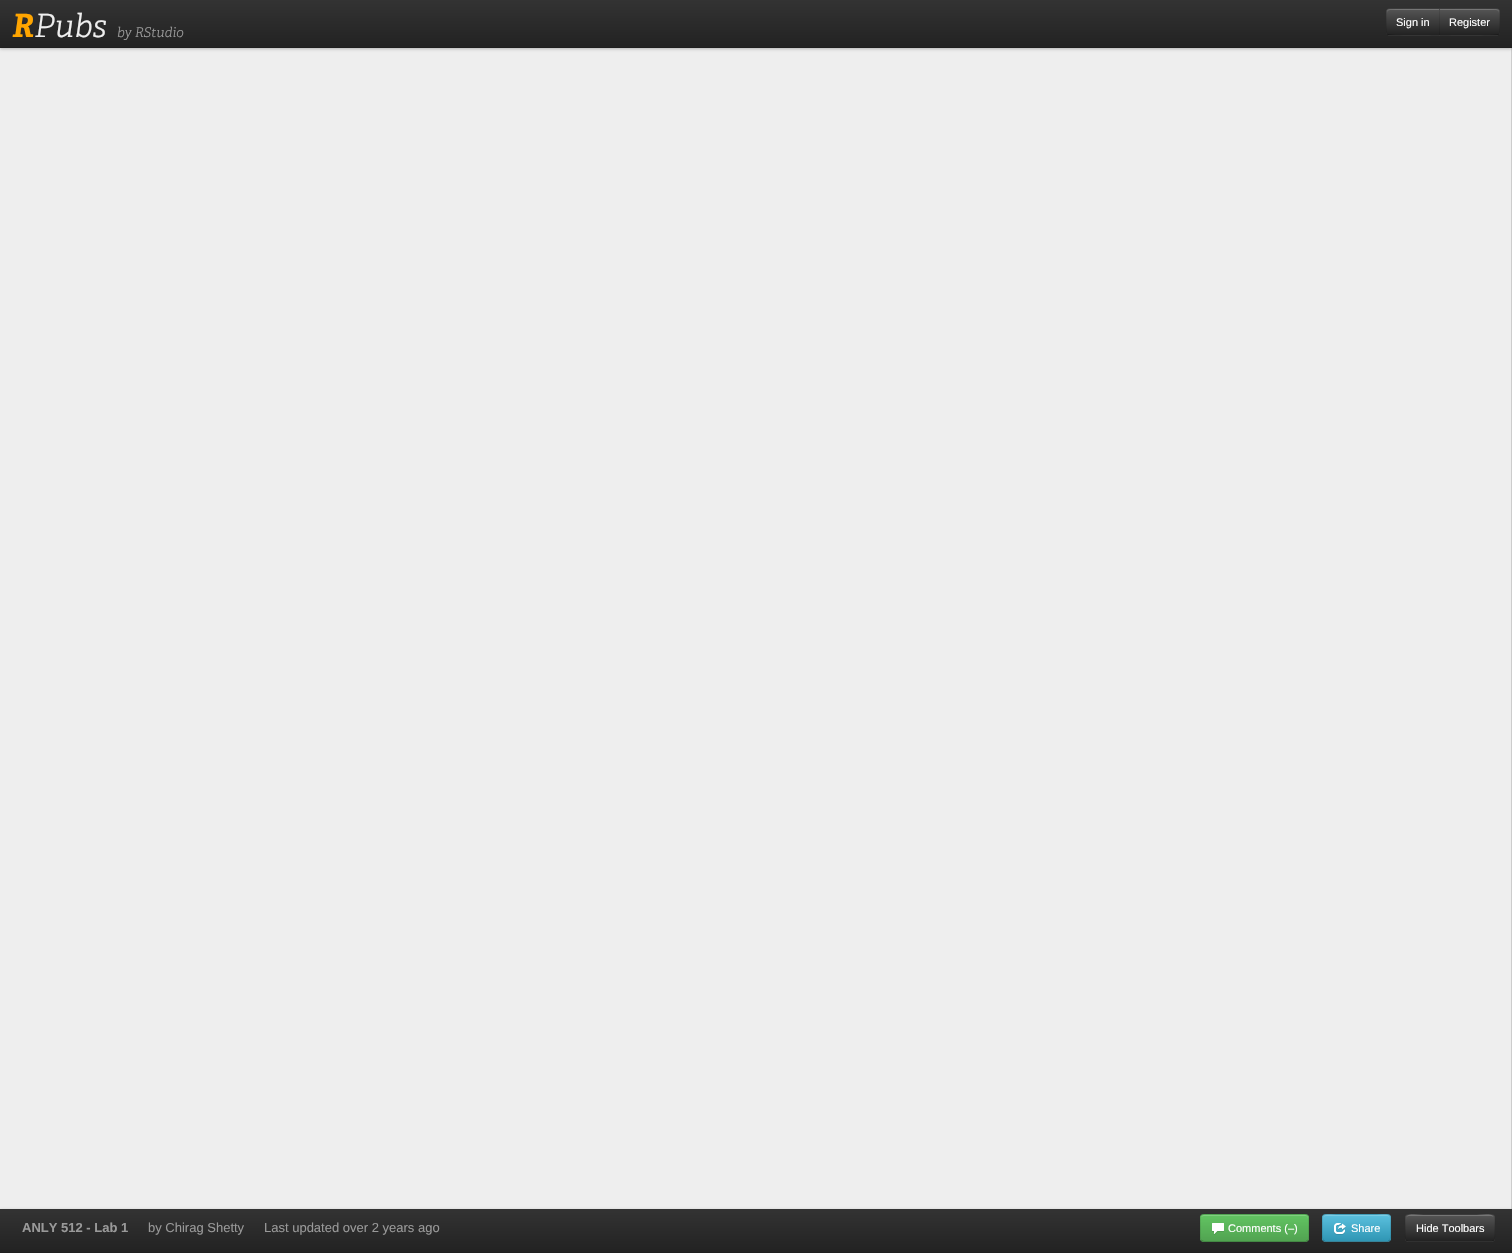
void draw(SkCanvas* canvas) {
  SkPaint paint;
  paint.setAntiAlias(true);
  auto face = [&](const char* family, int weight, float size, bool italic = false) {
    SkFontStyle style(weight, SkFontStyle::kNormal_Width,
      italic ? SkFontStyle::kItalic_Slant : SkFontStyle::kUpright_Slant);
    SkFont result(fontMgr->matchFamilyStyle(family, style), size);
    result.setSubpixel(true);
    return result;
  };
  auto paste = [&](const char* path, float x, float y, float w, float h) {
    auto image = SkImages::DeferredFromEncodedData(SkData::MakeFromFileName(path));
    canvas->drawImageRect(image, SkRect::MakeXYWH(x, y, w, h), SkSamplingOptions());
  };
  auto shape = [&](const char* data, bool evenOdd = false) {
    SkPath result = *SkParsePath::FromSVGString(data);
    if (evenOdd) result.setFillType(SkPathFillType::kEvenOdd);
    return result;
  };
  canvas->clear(0xffeeeeee);
  paint.setColor(0xffcccccc);
  canvas->drawRect(SkRect::MakeXYWH(1511, 48, 1, 1165), paint);
  paint.setColor(0x40000000);
  paint.setMaskFilter(SkMaskFilter::MakeBlur(kNormal_SkBlurStyle, 1.5f));
  canvas->drawRect(SkRect::MakeXYWH(0, 1, 1512, 48), paint);
  paint.setMaskFilter(nullptr);
  {
    const SkColor colors[] = {0xff333333, 0xff222222};
    const float stops[] = {0, 1};
    const SkPoint ends[] = {{756, 0}, {756, 48}};
    paint.setShader(SkGradientShader::MakeLinear(ends, colors, stops, 2, SkTileMode::kClamp));
    paint.setAlpha(255);
  }
  canvas->drawRect(SkRect::MakeXYWH(0, 0, 1512, 47), paint);
  paint.setShader(nullptr);
  paint.setColor(0xff1f1f1f);
  canvas->drawRect(SkRect::MakeXYWH(0, 47, 1512, 1), paint);
  paint.setColor(0xff414141);
  canvas->drawPath(shape("M1390 8H1440V36H1390C1388 36 1386 34 1386 32V12C1386 10 1388 8 1390 8Z"), paint);
  canvas->save();
  canvas->clipPath(shape("M1390 8H1440V36H1390C1388 36 1386 34 1386 32V12C1386 10 1388 8 1390 8Z"), true);
  {
    const SkColor colors[] = {0xff555555, 0xff222222};
    const float stops[] = {0, 1};
    const SkPoint ends[] = {{1413, 9}, {1413, 35}};
    paint.setShader(SkGradientShader::MakeLinear(ends, colors, stops, 2, SkTileMode::kClamp));
    paint.setAlpha(255);
  }
  canvas->drawRect(SkRect::MakeXYWH(1386, 9, 53, 26), paint);
  canvas->restore();
  paint.setShader(nullptr);
  paint.setColor(0xff767676);
  canvas->drawPath(shape("M1390 10H1439V9H1390C1388 9 1387 10 1387 12V13C1387 11 1388 10 1390 10Z"), paint);
  paint.setColor(0x1a000000);
  canvas->drawPath(shape("M1390 8L1387 9L1388 10C1390 8 1433 9 1439 9L1440 8Z"), paint);
  paint.setColor(0x40000000);
  canvas->drawPath(shape("M1440 36L1439 35C1433 35 1390 36 1388 34L1387 35L1390 36Z"), paint);
  paint.setColor(0x1a000000);
  canvas->drawPath(shape("M1386 12V32C1386 33 1386.5 34 1387 35L1388 34C1387 34 1387 33 1387 32V12C1387 11 1387 10 1388 10L1387 9C1386.5 10 1386 11 1386 12Z"), paint);
  paint.setColor(0xff414141);
  canvas->drawPath(shape("M1439 8H1496C1498 8 1500 10 1500 12V32C1500 34 1498 36 1496 36H1439Z"), paint);
  canvas->save();
  canvas->clipPath(shape("M1439 8H1496C1498 8 1500 10 1500 12V32C1500 34 1498 36 1496 36H1439Z"), true);
  {
    const SkColor colors[] = {0xff555555, 0xff222222};
    const float stops[] = {0, 1};
    const SkPoint ends[] = {{1470, 9}, {1470, 35}};
    paint.setShader(SkGradientShader::MakeLinear(ends, colors, stops, 2, SkTileMode::kClamp));
    paint.setAlpha(255);
  }
  canvas->drawRect(SkRect::MakeXYWH(1439, 9, 61, 26), paint);
  canvas->restore();
  paint.setShader(nullptr);
  paint.setColor(0xff767676);
  canvas->drawPath(shape("M1440 10H1496C1498 10 1499 11 1499 13V12C1499 10 1498 9 1496 9H1440Z"), paint);
  paint.setColor(0x1a000000);
  canvas->drawPath(shape("M1439 8L1440 9C1447 9 1496 8 1498 10L1499 9L1496 8Z"), paint);
  canvas->drawPath(shape("M1500 32V12C1500 11 1499.5 10 1499 9L1498 10C1499 10 1499 11 1499 12V32C1499 33 1499 34 1498 34L1499 35C1499.5 34 1500 33 1500 32Z"), paint);
  paint.setColor(0x40000000);
  canvas->drawPath(shape("M1496 36L1499 35L1498 34C1496 36 1447 35 1440 35L1439 36Z"), paint);
  paint.setColor(0x1a000000);
  canvas->drawPath(shape("M1439 8V36L1440 35V9Z"), paint);
  paint.setColor(0x40000000);
  paint.setMaskFilter(SkMaskFilter::MakeBlur(kNormal_SkBlurStyle, 1.5f));
  canvas->drawRect(SkRect::MakeXYWH(0, 1210, 1512, 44), paint);
  paint.setMaskFilter(nullptr);
  {
    const SkColor colors[] = {0xff333333, 0xff222222};
    const float stops[] = {0, 1};
    const SkPoint ends[] = {{756, 1209}, {756, 1253}};
    paint.setShader(SkGradientShader::MakeLinear(ends, colors, stops, 2, SkTileMode::kClamp));
    paint.setAlpha(255);
  }
  canvas->drawRect(SkRect::MakeXYWH(0, 1209, 1512, 43), paint);
  paint.setShader(nullptr);
  paint.setColor(0xff1f1f1f);
  canvas->drawRect(SkRect::MakeXYWH(0, 1252, 1512, 1), paint);
  paint.setColor(0xff5bb75b);
  canvas->drawRoundRect(SkRect::MakeXYWH(1200, 1214, 109, 28), 4, 4, paint);
  canvas->save();
  canvas->clipPath(shape("M1204 1214H1305C1307 1214 1309 1216 1309 1218V1238C1309 1240 1307 1242 1305 1242H1204C1202 1242 1200 1240 1200 1238V1218C1200 1216 1202 1214 1204 1214Z"), true);
  {
    const SkColor colors[] = {0xff62c462, 0xff51a351};
    const float stops[] = {0, 1};
    const SkPoint ends[] = {{1255, 1215}, {1255, 1241}};
    paint.setShader(SkGradientShader::MakeLinear(ends, colors, stops, 2, SkTileMode::kClamp));
    paint.setAlpha(255);
  }
  canvas->drawRect(SkRect::MakeXYWH(1200, 1215, 109, 26), paint);
  canvas->restore();
  paint.setShader(nullptr);
  paint.setColor(0xff81cf81);
  canvas->drawPath(shape("M1204 1216H1306C1307 1216 1308 1218 1308 1219V1218C1308 1216 1307 1215 1305 1215H1204C1202 1215 1201 1216 1201 1218C1201 1217 1202 1216 1204 1216ZM1308 1236V1239Z", true), paint);
  paint.setStroke(true);
  paint.setStrokeWidth(1);
  paint.setColor(0x40000000);
  canvas->drawPath(shape("M1307.5 1240.5L1305.5 1241.5H1221H1204L1201.5 1240.5"), paint);
  paint.setColor(0x1a000000);
  canvas->drawPath(shape("M1201.5 1240.5C1199.5 1238.5 1200.5 1234 1200.5 1231.5C1200.5 1210.5 1197.5 1214.5 1221 1214.5H1288C1311.5 1214.5 1308.5 1210.5 1308.5 1231.5C1308.5 1234 1309.5 1238.5 1307.5 1240.5"), paint);
  paste("img/1.png", 1212, 1223, 12, 12);
  paint.setStroke(false);
  paint.setColor(0xff49afcd);
  canvas->drawRoundRect(SkRect::MakeXYWH(1322, 1214, 69, 28), 4, 4, paint);
  canvas->save();
  canvas->clipPath(shape("M1326 1214H1387C1389 1214 1391 1216 1391 1218V1238C1391 1240 1389 1242 1387 1242H1326C1324 1242 1322 1240 1322 1238V1218C1322 1216 1324 1214 1326 1214Z"), true);
  {
    const SkColor colors[] = {0xff5bc0de, 0xff2f96b4};
    const float stops[] = {0, 1};
    const SkPoint ends[] = {{1357, 1215}, {1357, 1241}};
    paint.setShader(SkGradientShader::MakeLinear(ends, colors, stops, 2, SkTileMode::kClamp));
    paint.setAlpha(255);
  }
  canvas->drawRect(SkRect::MakeXYWH(1322, 1215, 69, 26), paint);
  canvas->restore();
  paint.setShader(nullptr);
  paint.setColor(0x33ffffff);
  canvas->drawPath(shape("M1326 1216H1387C1389 1216 1390 1217 1390 1219C1390 1212 1381 1215 1377 1215H1336C1332 1215 1323 1212 1323 1219C1323 1217 1324 1216 1326 1216Z"), paint);
  paint.setStroke(true);
  paint.setColor(0x40000000);
  canvas->drawPath(shape("M1389.5 1240.5L1387.5 1241.5H1325.5L1323.5 1240.5"), paint);
  paint.setColor(0x1a000000);
  canvas->drawPath(shape("M1323.5 1240.5C1321.5 1238 1322.5 1230.5 1322.5 1228C1322.5 1213 1320.5 1214.5 1336 1214.5H1377C1392.5 1214.5 1390.5 1213 1390.5 1228C1390.5 1230.5 1391.5 1238 1389.5 1240.5"), paint);
  paste("img/2.png", 1334, 1223, 12, 12);
  paint.setStroke(false);
  paint.setColor(0xff414141);
  canvas->drawRoundRect(SkRect::MakeXYWH(1405, 1214, 90, 28), 4, 4, paint);
  canvas->save();
  canvas->clipPath(shape("M1409 1214H1491C1493 1214 1495 1216 1495 1218V1238C1495 1240 1493 1242 1491 1242H1409C1407 1242 1405 1240 1405 1238V1218C1405 1216 1407 1214 1409 1214Z"), true);
  {
    const SkColor colors[] = {0xff555555, 0xff222222};
    const float stops[] = {0, 1};
    const SkPoint ends[] = {{1450, 1215}, {1450, 1241}};
    paint.setShader(SkGradientShader::MakeLinear(ends, colors, stops, 2, SkTileMode::kClamp));
    paint.setAlpha(255);
  }
  canvas->drawRect(SkRect::MakeXYWH(1405, 1215, 90, 26), paint);
  canvas->restore();
  paint.setShader(nullptr);
  paint.setColor(0x33ffffff);
  canvas->drawPath(shape("M1409 1216H1491C1493 1216 1494 1217 1494 1219C1494 1211 1481 1215 1477 1215H1423C1419 1215 1406 1211 1406 1219C1406 1217 1407 1216 1409 1216Z"), paint);
  paint.setStroke(true);
  paint.setColor(0x40000000);
  canvas->drawPath(shape("M1493.5 1240.5L1491.5 1241.5H1408.5L1406.5 1240.5"), paint);
  paint.setColor(0x1a000000);
  canvas->drawPath(shape("M1406.5 1240.5C1404.5 1238.5 1405.5 1234 1405.5 1231.5C1405.5 1212 1402.5 1214.5 1422.5 1214.5H1477.5C1497.5 1214.5 1494.5 1212 1494.5 1231.5C1494.5 1234 1495.5 1238.5 1493.5 1240.5"), paint);
  auto f0 = face("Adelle", 700, 32, true);
  paint.setStroke(false);
  paint.setColor(0xffffa500);
  canvas->drawString("R", 12, 37, f0, paint);
  auto f1 = face("Adelle", 300, 32, true);
  paint.setColor(0xffeeeeee);
  canvas->drawString("Pubs", 34, 37, f1, paint);
  auto f2 = face("Adelle", 300, 13.5f, true);
  paint.setColor(0xff999999);
  canvas->drawString("by RStudio", 117, 37, f2, paint);
  auto f3 = face("Liberation Sans", 400, 11);
  paint.setColor(0xffffffff);
  canvas->drawString("Sign in", 1396, 26, f3, paint);
  canvas->drawString("Register", 1449, 26, f3, paint);
  auto f4 = face("Liberation Sans", 700, 13);
  paint.setColor(0xff999999);
  canvas->drawString("ANLY 512 - Lab 1", 22, 1232, f4, paint);
  auto f5 = face("Liberation Sans", 400, 13);
  canvas->drawString("by Chirag Shetty", 148, 1232, f5, paint);
  canvas->drawString("Last updated over 2 years ago", 264, 1232, f5, paint);
  paint.setColor(0xffffffff);
  {
    const struct { const char* s; float x, y; } items[] = {
      {"Comments (–)", 1228, 1232},
      {"Share", 1351, 1232},
      {"Hide Toolbars", 1416, 1232},
    };
    for (auto [s, x, y] : items) {
      canvas->drawString(s, x, y, f3, paint);
    }
  }
}
